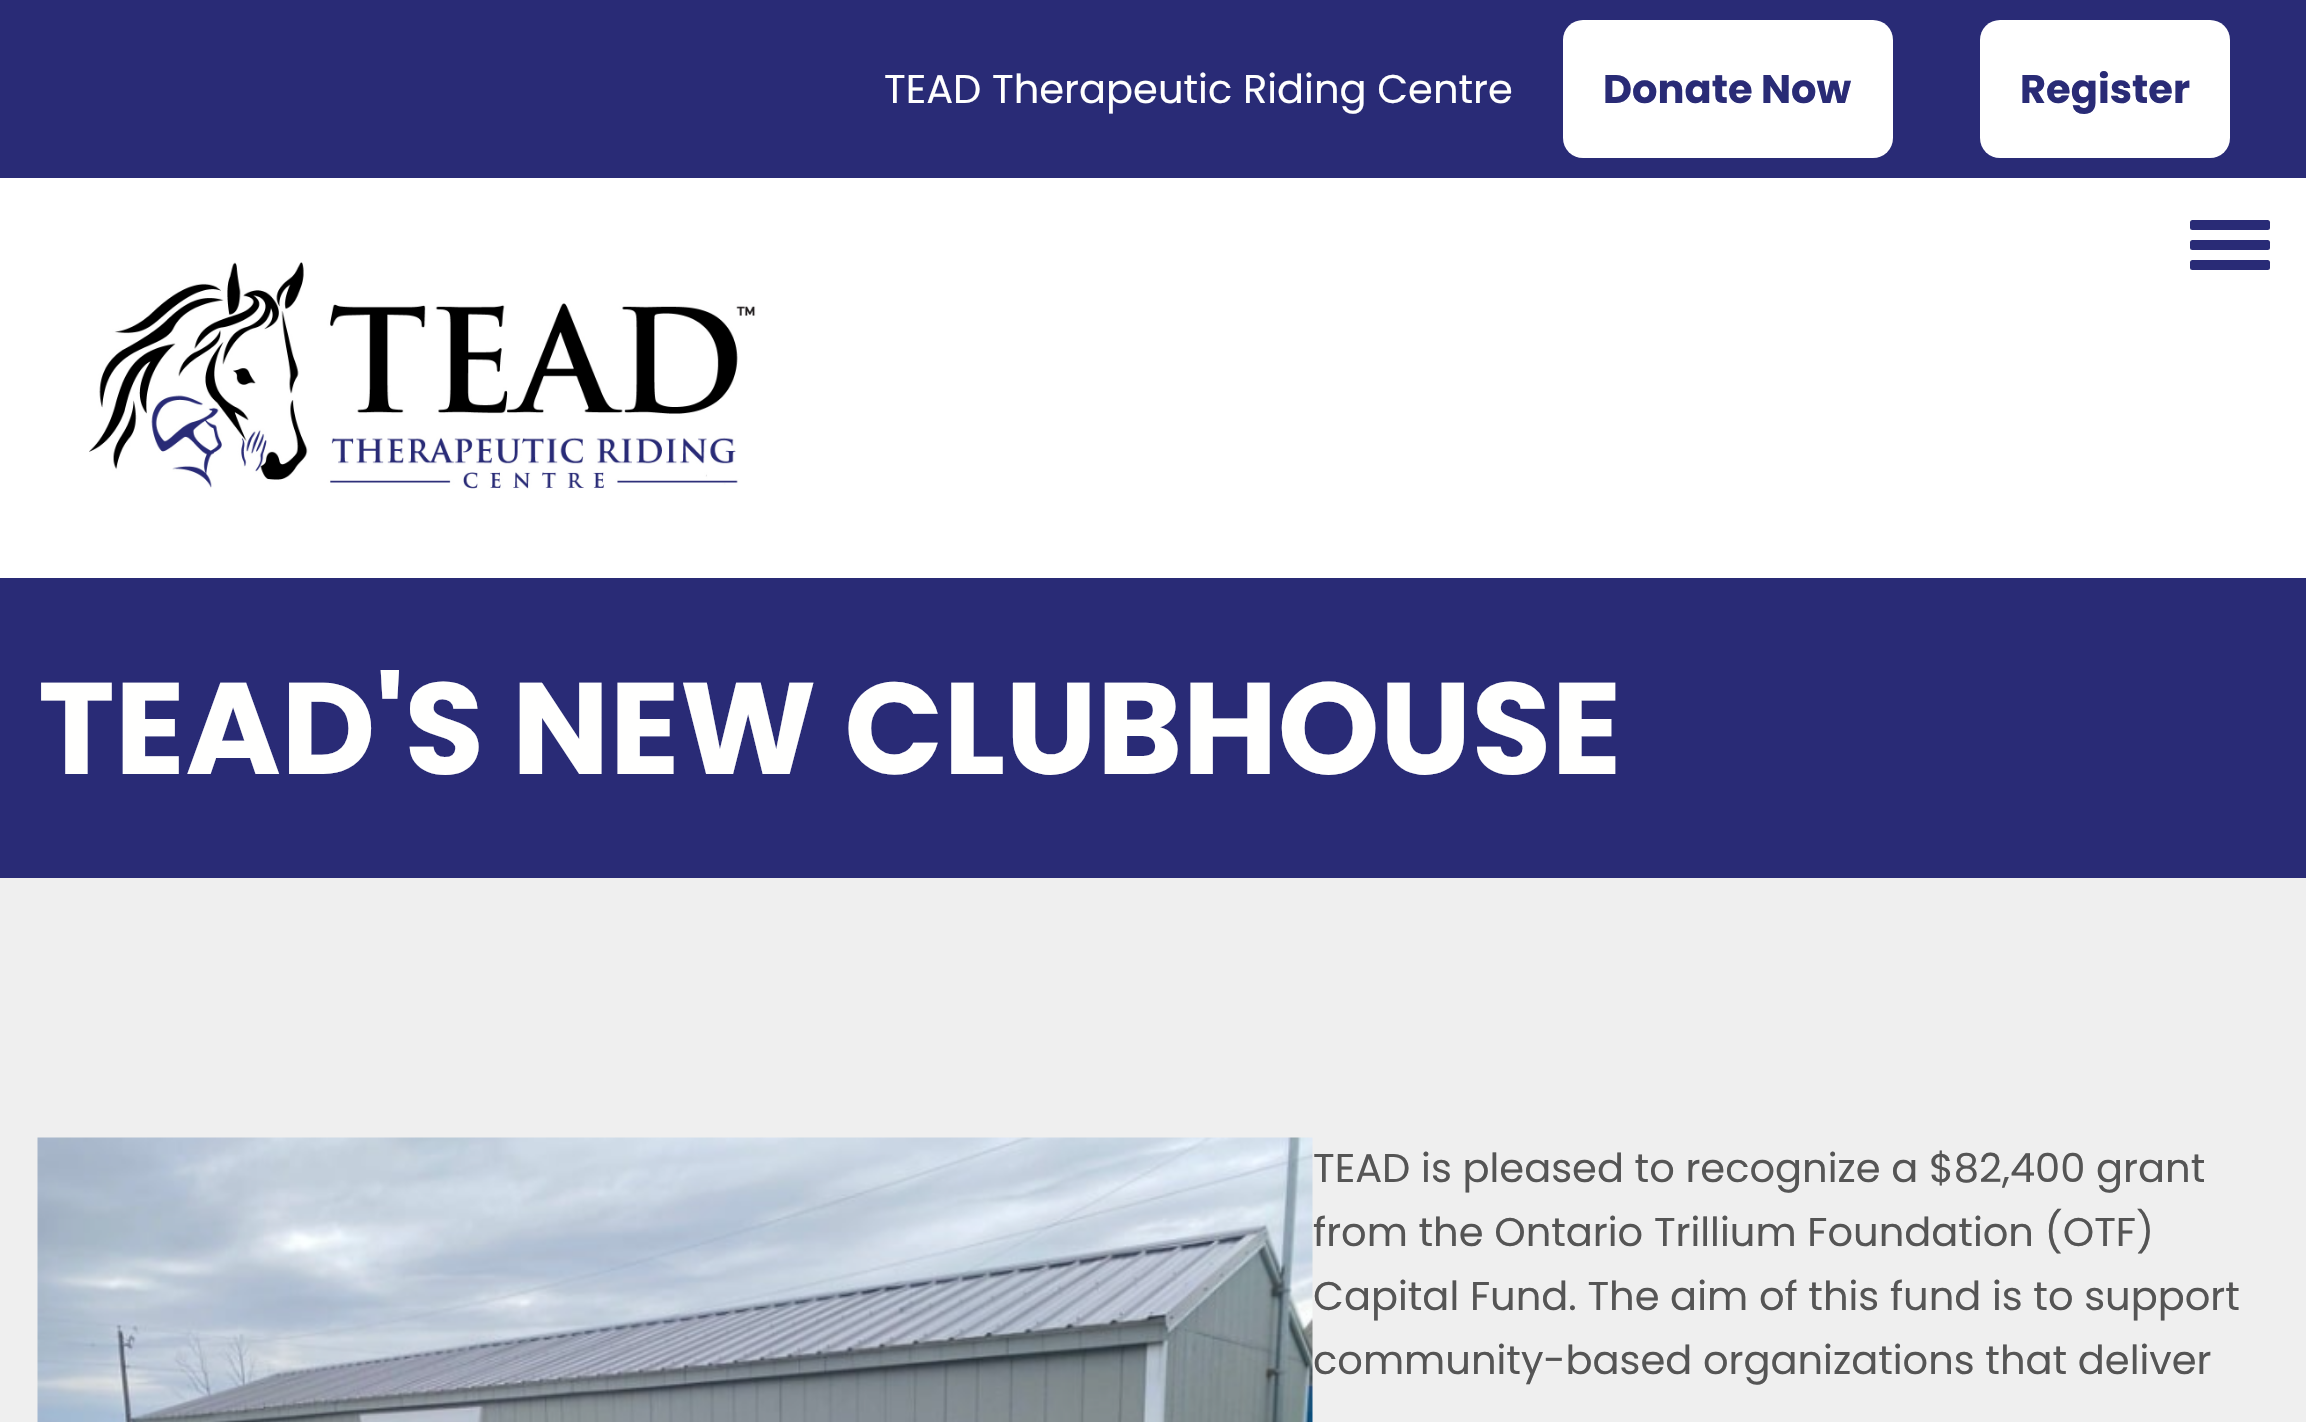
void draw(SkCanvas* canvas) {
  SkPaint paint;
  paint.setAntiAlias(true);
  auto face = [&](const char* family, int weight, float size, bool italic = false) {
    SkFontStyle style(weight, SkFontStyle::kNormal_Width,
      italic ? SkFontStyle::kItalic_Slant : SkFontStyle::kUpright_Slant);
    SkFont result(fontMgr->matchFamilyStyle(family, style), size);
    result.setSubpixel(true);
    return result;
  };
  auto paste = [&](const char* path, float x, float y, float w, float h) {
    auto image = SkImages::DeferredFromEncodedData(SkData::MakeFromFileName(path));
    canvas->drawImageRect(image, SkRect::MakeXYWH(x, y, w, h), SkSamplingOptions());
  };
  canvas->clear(0xffefefef);
  paint.setColor(0xff292b76);
  canvas->drawRect(SkRect::MakeXYWH(0, 0, 2306, 178), paint);
  paint.setColor(0xffffffff);
  canvas->drawRoundRect(SkRect::MakeXYWH(1563, 20, 330, 138), 20, 20, paint);
  canvas->drawRoundRect(SkRect::MakeXYWH(1980, 20, 250, 138), 20, 20, paint);
  canvas->drawRect(SkRect::MakeXYWH(0, 178, 2306, 400), paint);
  paint.setColor(0xff292b76);
  canvas->drawRoundRect(SkRect::MakeXYWH(2190, 240, 80, 10), 2.5f, 2.5f, paint);
  canvas->drawRoundRect(SkRect::MakeXYWH(2190, 220, 80, 10), 2.5f, 2.5f, paint);
  canvas->drawRoundRect(SkRect::MakeXYWH(2190, 260, 80, 10), 2.5f, 2.5f, paint);
  paste("img/1.png", 89, 262, 667, 227);
  canvas->drawRect(SkRect::MakeXYWH(0, 578, 2306, 300), paint);
  paste("img/2.png", 37, 1137, 1276, 285);
  auto f0 = face("Poppins", 400, 40);
  paint.setColor(0xfffffffe);
  canvas->drawString("TEAD Therapeutic Riding Centre", 884, 103, f0, paint);
  auto f1 = face("Poppins", 700, 40);
  paint.setColor(0xff292b76);
  canvas->drawString("Donate Now", 1603, 103, f1, paint);
  canvas->drawString("Register", 2020, 103, f1, paint);
  auto f2 = face("Poppins", 700, 130);
  paint.setColor(0xfffffffe);
  canvas->drawString("TEAD'S NEW CLUBHOUSE", 38, 774, f2, paint);
  paint.setColor(0xff555555);
  {
    const struct { const char* s; float x, y; } items[] = {
      {"TEAD is pleased to recognize a $82,400 grant", 1313, 1182},
      {"from the Ontario Trillium Foundation (OTF)", 1313, 1246},
      {"Capital Fund. The aim of this fund is to support", 1313, 1310},
      {"community-based organizations that deliver", 1313, 1374},
    };
    for (auto [s, x, y] : items) {
      canvas->drawString(s, x, y, f0, paint);
    }
  }
}
